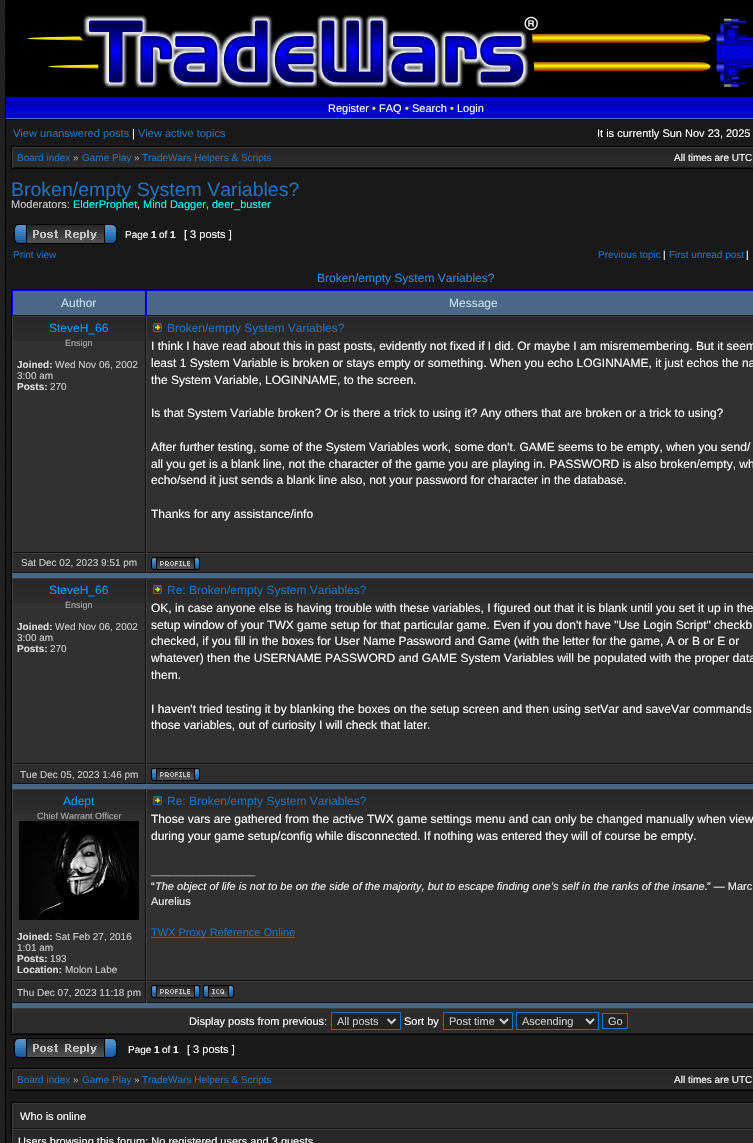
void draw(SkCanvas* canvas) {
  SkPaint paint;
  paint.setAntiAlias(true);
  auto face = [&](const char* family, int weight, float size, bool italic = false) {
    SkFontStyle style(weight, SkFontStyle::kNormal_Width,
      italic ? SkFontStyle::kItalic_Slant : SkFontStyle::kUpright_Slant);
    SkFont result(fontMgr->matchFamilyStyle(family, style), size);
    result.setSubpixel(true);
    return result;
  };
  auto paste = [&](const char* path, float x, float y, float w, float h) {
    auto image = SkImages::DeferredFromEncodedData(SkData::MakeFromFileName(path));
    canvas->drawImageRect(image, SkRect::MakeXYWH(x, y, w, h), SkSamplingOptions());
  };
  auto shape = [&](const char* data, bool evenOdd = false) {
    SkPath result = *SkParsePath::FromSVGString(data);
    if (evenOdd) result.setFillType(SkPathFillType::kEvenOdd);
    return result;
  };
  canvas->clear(0xffffffff);
  paste("img/1.png", 0, 0, 5, 1143);
  paint.setColor(0xff000000);
  canvas->drawRect(SkRect::MakeXYWH(5, 0, 1, 1143), paint);
  paste("img/2.png", 6, 0, 747, 96);
  paste("img/3.png", 6, 15, 532, 73);
  paste("img/4.png", 697, 18, 56, 69);
  paint.setColor(0xff3b83c6);
  canvas->drawRect(SkRect::MakeXYWH(6, 118, 747, 1), paint);
  paste("img/5.png", 6, 97, 747, 21);
  {
    const struct { float x, y, w, h; SkColor color; } items[] = {
      {6, 96, 747, 1, 0xff000000},
      {6, 119, 747, 1, 0xff000000},
      {6, 120, 747, 1023, 0xff191919},
    };
    for (auto [x, y, w, h, color] : items) {
      paint.setColor(color);
      canvas->drawRect(SkRect::MakeXYWH(x, y, w, h), paint);
    }
  }
  paint.setStroke(true);
  paint.setStrokeWidth(1);
  paint.setColor(0xff000000);
  canvas->drawRect(SkRect::MakeXYWH(11.5f, 146.5f, 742, 22), paint);
  paste("img/6.png", 13, 148, 740, 19);
  paint.setStroke(false);
  {
    const struct { float x, y, w, h; SkColor color; } items[] = {
      {12, 147, 741, 1, 0xff3c3c3c},
      {12, 167, 741, 1, 0xff131313},
      {12, 147, 1, 21, 0xff404040},
    };
    for (auto [x, y, w, h, color] : items) {
      paint.setColor(color);
      canvas->drawRect(SkRect::MakeXYWH(x, y, w, h), paint);
    }
  }
  paste("img/7.png", 14, 224, 103, 20);
  paint.setStroke(true);
  paint.setColor(0xff000000);
  canvas->drawRect(SkRect::MakeXYWH(11.5f, 289.5f, 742, 745), paint);
  paint.setStroke(false);
  {
    const struct { float x, y, w, h; SkColor color; } items[] = {
      {13, 291, 132, 24, 0xff4a6786},
      {12, 290, 741, 1, 0xff0000ff},
      {145, 290, 1, 26, 0xff000080},
      {12, 315, 741, 1, 0xff000080},
      {12, 290, 1, 26, 0xff0000ff},
      {147, 291, 606, 24, 0xff4a6786},
      {146, 290, 1, 26, 0xff0000ff},
      {13, 341, 132, 211, 0xff313131},
    };
    for (auto [x, y, w, h, color] : items) {
      paint.setColor(color);
      canvas->drawRect(SkRect::MakeXYWH(x, y, w, h), paint);
    }
  }
  paste("img/8.png", 13, 317, 132, 24);
  {
    const struct { float x, y, w, h; SkColor color; } items[] = {
      {12, 316, 741, 1, 0xff3c3c3c},
      {145, 316, 1, 237, 0xff121212},
      {12, 552, 741, 1, 0xff131313},
      {12, 316, 1, 237, 0xff404040},
      {147, 341, 606, 211, 0xff313131},
    };
    for (auto [x, y, w, h, color] : items) {
      paint.setColor(color);
      canvas->drawRect(SkRect::MakeXYWH(x, y, w, h), paint);
    }
  }
  paste("img/9.png", 147, 317, 606, 24);
  paint.setColor(0xff404040);
  canvas->drawRect(SkRect::MakeXYWH(146, 316, 1, 237), paint);
  paste("img/10.png", 153, 323, 9, 9);
  {
    const struct { float x, y, w, h; SkColor color; } items[] = {
      {13, 554, 132, 18, 0xff2d2d2d},
      {12, 553, 741, 1, 0xff3c3c3c},
      {145, 553, 1, 20, 0xff121212},
      {12, 572, 741, 1, 0xff131313},
      {12, 553, 1, 20, 0xff404040},
      {147, 554, 606, 18, 0xff2d2d2d},
      {146, 553, 1, 20, 0xff404040},
    };
    for (auto [x, y, w, h, color] : items) {
      paint.setColor(color);
      canvas->drawRect(SkRect::MakeXYWH(x, y, w, h), paint);
    }
  }
  paste("img/11.png", 151, 557, 49, 13);
  paint.setColor(0xff4a6786);
  canvas->drawRect(SkRect::MakeXYWH(12, 573, 741, 5), paint);
  paint.setColor(0xff313131);
  canvas->drawRect(SkRect::MakeXYWH(13, 603, 132, 160), paint);
  paste("img/8.png", 13, 579, 132, 24);
  {
    const struct { float x, y, w, h; SkColor color; } items[] = {
      {12, 578, 741, 1, 0xff3c3c3c},
      {145, 578, 1, 186, 0xff121212},
      {12, 763, 741, 1, 0xff131313},
      {12, 578, 1, 186, 0xff404040},
      {147, 603, 606, 160, 0xff313131},
    };
    for (auto [x, y, w, h, color] : items) {
      paint.setColor(color);
      canvas->drawRect(SkRect::MakeXYWH(x, y, w, h), paint);
    }
  }
  paste("img/9.png", 147, 579, 606, 24);
  paint.setColor(0xff404040);
  canvas->drawRect(SkRect::MakeXYWH(146, 578, 1, 186), paint);
  paste("img/10.png", 153, 585, 9, 9);
  {
    const struct { float x, y, w, h; SkColor color; } items[] = {
      {13, 765, 132, 18, 0xff2d2d2d},
      {12, 764, 741, 1, 0xff3c3c3c},
      {145, 764, 1, 20, 0xff121212},
      {12, 783, 741, 1, 0xff131313},
      {12, 764, 1, 20, 0xff404040},
      {147, 765, 606, 18, 0xff2d2d2d},
      {146, 764, 1, 20, 0xff404040},
    };
    for (auto [x, y, w, h, color] : items) {
      paint.setColor(color);
      canvas->drawRect(SkRect::MakeXYWH(x, y, w, h), paint);
    }
  }
  paste("img/11.png", 151, 768, 49, 13);
  paint.setColor(0xff4a6786);
  canvas->drawRect(SkRect::MakeXYWH(12, 784, 741, 5), paint);
  paint.setColor(0xff313131);
  canvas->drawRect(SkRect::MakeXYWH(13, 814, 132, 166), paint);
  paste("img/8.png", 13, 790, 132, 24);
  {
    const struct { float x, y, w, h; SkColor color; } items[] = {
      {12, 789, 741, 1, 0xff3c3c3c},
      {145, 789, 1, 192, 0xff121212},
      {12, 980, 741, 1, 0xff131313},
      {12, 789, 1, 192, 0xff404040},
    };
    for (auto [x, y, w, h, color] : items) {
      paint.setColor(color);
      canvas->drawRect(SkRect::MakeXYWH(x, y, w, h), paint);
    }
  }
  paste("img/12.png", 19, 821, 120, 99);
  paint.setColor(0xff313131);
  canvas->drawRect(SkRect::MakeXYWH(147, 814, 606, 166), paint);
  paste("img/9.png", 147, 790, 606, 24);
  paint.setColor(0xff404040);
  canvas->drawRect(SkRect::MakeXYWH(146, 789, 1, 192), paint);
  paste("img/10.png", 153, 796, 9, 9);
  {
    const struct { float x, y, w, h; SkColor color; } items[] = {
      {151, 937, 144, 1, 0xff2370b6},
      {13, 982, 132, 20, 0xff2d2d2d},
      {12, 981, 741, 1, 0xff3c3c3c},
      {145, 981, 1, 22, 0xff121212},
      {12, 1002, 741, 1, 0xff131313},
      {12, 981, 1, 22, 0xff404040},
      {147, 982, 606, 20, 0xff2d2d2d},
      {146, 981, 1, 22, 0xff404040},
    };
    for (auto [x, y, w, h, color] : items) {
      paint.setColor(color);
      canvas->drawRect(SkRect::MakeXYWH(x, y, w, h), paint);
    }
  }
  paste("img/11.png", 151, 985, 49, 13);
  paste("img/13.png", 203, 985, 31, 13);
  {
    const struct { float x, y, w, h; SkColor color; } items[] = {
      {12, 1003, 741, 5, 0xff4a6786},
      {13, 1009, 740, 24, 0xff2c2c2c},
      {12, 1008, 741, 1, 0xff3c3c3c},
      {12, 1033, 741, 1, 0xff131313},
      {12, 1008, 1, 26, 0xff404040},
    };
    for (auto [x, y, w, h, color] : items) {
      paint.setColor(color);
      canvas->drawRect(SkRect::MakeXYWH(x, y, w, h), paint);
    }
  }
  paint.setColor(0xff222222);
  canvas->drawRect(SkRect::MakeXYWH(331.5f, 1012.5f, 69, 17), paint);
  paint.setStroke(true);
  paint.setColor(0xff2370b6);
  canvas->drawRect(SkRect::MakeXYWH(331.5f, 1012.5f, 69, 17), paint);
  paint.setStrokeWidth(2);
  paint.setColor(0xffd0d0d0);
  canvas->drawPath(shape("M387.5 1019L391.5 1023L395.5 1019"), paint);
  paint.setStroke(false);
  paint.setColor(0xff222222);
  canvas->drawRect(SkRect::MakeXYWH(443.5f, 1012.5f, 69, 17), paint);
  paint.setStroke(true);
  paint.setStrokeWidth(1);
  paint.setColor(0xff2370b6);
  canvas->drawRect(SkRect::MakeXYWH(443.5f, 1012.5f, 69, 17), paint);
  paint.setStrokeWidth(2);
  paint.setColor(0xffd0d0d0);
  canvas->drawPath(shape("M500 1019L504 1023L508 1019"), paint);
  paint.setStroke(false);
  paint.setColor(0xff222222);
  canvas->drawRect(SkRect::MakeXYWH(516.5f, 1012.5f, 82, 17), paint);
  paint.setStroke(true);
  paint.setStrokeWidth(1);
  paint.setColor(0xff2370b6);
  canvas->drawRect(SkRect::MakeXYWH(516.5f, 1012.5f, 82, 17), paint);
  paint.setStrokeWidth(2);
  paint.setColor(0xffd0d0d0);
  canvas->drawPath(shape("M586 1019L590 1023L594 1019"), paint);
  paint.setStroke(false);
  paint.setColor(0xff222222);
  canvas->drawRect(SkRect::MakeXYWH(602.5f, 1013.5f, 25, 15), paint);
  paint.setStroke(true);
  paint.setStrokeWidth(1);
  paint.setColor(0xff2370b6);
  canvas->drawRect(SkRect::MakeXYWH(602.5f, 1013.5f, 25, 15), paint);
  paste("img/7.png", 14, 1038, 103, 20);
  paint.setColor(0xff000000);
  canvas->drawRect(SkRect::MakeXYWH(11.5f, 1068.5f, 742, 22), paint);
  paste("img/6.png", 13, 1070, 740, 19);
  paint.setStroke(false);
  {
    const struct { float x, y, w, h; SkColor color; } items[] = {
      {12, 1069, 741, 1, 0xff3c3c3c},
      {12, 1089, 741, 1, 0xff131313},
      {12, 1069, 1, 21, 0xff404040},
    };
    for (auto [x, y, w, h, color] : items) {
      paint.setColor(color);
      canvas->drawRect(SkRect::MakeXYWH(x, y, w, h), paint);
    }
  }
  paint.setStroke(true);
  paint.setColor(0xff000000);
  canvas->drawRect(SkRect::MakeXYWH(11.5f, 1102.5f, 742, 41), paint);
  paint.setStroke(false);
  {
    const struct { float x, y, w, h; SkColor color; } items[] = {
      {13, 1104, 740, 24, 0xff2c2c2c},
      {12, 1103, 741, 1, 0xff3c3c3c},
      {12, 1128, 741, 1, 0xff131313},
      {12, 1103, 1, 26, 0xff404040},
      {13, 1130, 740, 13, 0xff282828},
      {12, 1129, 741, 1, 0xff3c3c3c},
      {12, 1129, 1, 14, 0xff404040},
    };
    for (auto [x, y, w, h, color] : items) {
      paint.setColor(color);
      canvas->drawRect(SkRect::MakeXYWH(x, y, w, h), paint);
    }
  }
  auto f0 = face("Liberation Sans", 400, 11);
  paint.setColor(0xffffffff);
  canvas->drawString("Register", 328, 112, f0, paint);
  paint.setColor(0xfff0e80a);
  canvas->drawString("•", 372, 112, f0, paint);
  paint.setColor(0xffffffff);
  canvas->drawString("FAQ", 379, 112, f0, paint);
  paint.setColor(0xfff0e80a);
  canvas->drawString("•", 405, 112, f0, paint);
  paint.setColor(0xffffffff);
  canvas->drawString("Search", 412, 112, f0, paint);
  paint.setColor(0xfff0e80a);
  canvas->drawString("•", 450, 112, f0, paint);
  paint.setColor(0xffffffff);
  canvas->drawString("Login", 457, 112, f0, paint);
  paint.setColor(0xff2370b6);
  canvas->drawString("View unanswered posts", 13, 137, f0, paint);
  paint.setColor(0xffffffff);
  canvas->drawString("|", 132, 137, f0, paint);
  paint.setColor(0xff2370b6);
  canvas->drawString("View active topics", 138, 137, f0, paint);
  paint.setColor(0xffffffff);
  canvas->drawString("It is currently Sun Nov 23, 2025", 597, 137, f0, paint);
  auto f1 = face("Liberation Sans", 400, 10);
  paint.setColor(0xff2370b6);
  canvas->drawString("Board index", 17, 161, f1, paint);
  paint.setColor(0xffaaaaaa);
  canvas->drawString("»", 73, 161, f1, paint);
  paint.setColor(0xff2370b6);
  canvas->drawString("Game Play", 82, 161, f1, paint);
  paint.setColor(0xffaaaaaa);
  canvas->drawString("»", 134, 161, f1, paint);
  paint.setColor(0xff2370b6);
  canvas->drawString("TradeWars Helpers & Scripts", 142, 161, f1, paint);
  paint.setColor(0xffffffff);
  canvas->drawString("All times are UTC", 674, 161, f1, paint);
  auto f2 = face("Liberation Sans", 400, 19.5f);
  paint.setColor(0xff2370b6);
  canvas->drawString("Broken/empty System Variables?", 11, 196, f2, paint);
  paint.setColor(0xffcccccc);
  canvas->drawString("Moderators:", 11, 208, f0, paint);
  paint.setColor(0xff00ffff);
  canvas->drawString("ElderProphet", 73, 208, f0, paint);
  paint.setColor(0xffcccccc);
  canvas->drawString(",", 137, 208, f0, paint);
  paint.setColor(0xff00ffff);
  canvas->drawString("Mind Dagger", 143, 208, f0, paint);
  paint.setColor(0xffcccccc);
  canvas->drawString(",", 206, 208, f0, paint);
  paint.setColor(0xff00ffff);
  canvas->drawString("deer_buster", 212, 208, f0, paint);
  paint.setColor(0xffffffff);
  canvas->drawString("Page", 125, 238, f1, paint);
  auto f3 = face("Liberation Sans", 700, 10);
  canvas->drawString("1", 151, 238, f3, paint);
  canvas->drawString("of", 159, 238, f1, paint);
  canvas->drawString("1", 170, 238, f3, paint);
  canvas->drawString("[ 3 posts ]", 184, 238, f0, paint);
  paint.setColor(0xff2370b6);
  canvas->drawString("Print view", 13, 258, f1, paint);
  canvas->drawString("Previous topic", 598, 258, f1, paint);
  paint.setColor(0xffffffff);
  canvas->drawString("|", 663, 258, f1, paint);
  paint.setColor(0xff2370b6);
  canvas->drawString("First unread post", 669, 258, f1, paint);
  paint.setColor(0xffffffff);
  canvas->drawString("|", 746, 258, f1, paint);
  auto f4 = face("Liberation Sans", 400, 12);
  paint.setColor(0xff3285d0);
  canvas->drawString("Broken/empty System Variables?", 317, 282, f4, paint);
  paint.setColor(0xffccdff0);
  canvas->drawString("Author", 61, 307, f4, paint);
  canvas->drawString("Message", 449, 307, f4, paint);
  paint.setColor(0xff0099ff);
  canvas->drawString("SteveH_66", 49, 332, f4, paint);
  auto f5 = face("Liberation Sans", 400, 9);
  paint.setColor(0xffb0b0b0);
  canvas->drawString("Ensign", 65, 346, f5, paint);
  paint.setColor(0xffdddddd);
  canvas->drawString("Joined:", 17, 368, f3, paint);
  paint.setColor(0xffcccccc);
  canvas->drawString("Wed Nov 06, 2002", 55, 368, f1, paint);
  canvas->drawString("3:00 am", 17, 379, f1, paint);
  paint.setColor(0xffdddddd);
  canvas->drawString("Posts:", 17, 390, f3, paint);
  paint.setColor(0xffcccccc);
  canvas->drawString("270", 50, 390, f1, paint);
  paint.setColor(0xff2370b6);
  canvas->drawString("Broken/empty System Variables?", 167, 332, f4, paint);
  paint.setColor(0xffffffff);
  {
    const struct { const char* s; float x, y; } items[] = {
      {"I think I have read about this in past posts, evidently not fixed if I did. Or maybe I am misremembering. But it seem", 151, 350},
      {"least 1 System Variable is broken or stays empty or something. When you echo LOGINNAME, it just echos the na", 151, 367},
      {"the System Variable, LOGINNAME, to the screen.", 151, 384},
      {"Is that System Variable broken? Or is there a trick to using it? Any others that are broken or a trick to using?", 151, 417},
      {"After further testing, some of the System Variables work, some don't. GAME seems to be empty, when you send/", 151, 451},
      {"all you get is a blank line, not the character of the game you are playing in. PASSWORD is also broken/empty, wh", 151, 468},
      {"echo/send it just sends a blank line also, not your password for character in the database.", 151, 484},
      {"Thanks for any assistance/info", 151, 518},
    };
    for (auto [s, x, y] : items) {
      canvas->drawString(s, x, y, f4, paint);
    }
  }
  paint.setColor(0xffcccccc);
  canvas->drawString("Sat Dec 02, 2023 9:51 pm", 21, 566, f1, paint);
  paint.setColor(0xff0099ff);
  canvas->drawString("SteveH_66", 49, 594, f4, paint);
  paint.setColor(0xffb0b0b0);
  canvas->drawString("Ensign", 65, 608, f5, paint);
  paint.setColor(0xffdddddd);
  canvas->drawString("Joined:", 17, 630, f3, paint);
  paint.setColor(0xffcccccc);
  canvas->drawString("Wed Nov 06, 2002", 55, 630, f1, paint);
  canvas->drawString("3:00 am", 17, 641, f1, paint);
  paint.setColor(0xffdddddd);
  canvas->drawString("Posts:", 17, 652, f3, paint);
  paint.setColor(0xffcccccc);
  canvas->drawString("270", 50, 652, f1, paint);
  paint.setColor(0xff2370b6);
  canvas->drawString("Re: Broken/empty System Variables?", 167, 594, f4, paint);
  paint.setColor(0xffffffff);
  {
    const struct { const char* s; float x, y; } items[] = {
      {"OK, in case anyone else is having trouble with these variables, I figured out that it is blank until you set it up in the", 151, 612},
      {"setup window of your TWX game setup for that particular game. Even if you don't have \"Use Login Script\" checkb", 151, 629},
      {"checked, if you fill in the boxes for User Name Password and Game (with the letter for the game, A or B or E or", 151, 645},
      {"whatever) then the USERNAME PASSWORD and GAME System Variables will be populated with the proper data", 151, 662},
      {"them.", 151, 679},
      {"I haven't tried testing it by blanking the boxes on the setup screen and then using setVar and saveVar commands", 151, 713},
      {"those variables, out of curiosity I will check that later.", 151, 729},
    };
    for (auto [s, x, y] : items) {
      canvas->drawString(s, x, y, f4, paint);
    }
  }
  paint.setColor(0xffcccccc);
  canvas->drawString("Tue Dec 05, 2023 1:46 pm", 20, 778, f1, paint);
  paint.setColor(0xff0099ff);
  canvas->drawString("Adept", 63, 805, f4, paint);
  paint.setColor(0xffb0b0b0);
  canvas->drawString("Chief Warrant Officer", 37, 819, f5, paint);
  paint.setColor(0xffdddddd);
  canvas->drawString("Joined:", 17, 940, f3, paint);
  paint.setColor(0xffcccccc);
  canvas->drawString("Sat Feb 27, 2016", 55, 940, f1, paint);
  canvas->drawString("1:01 am", 17, 951, f1, paint);
  paint.setColor(0xffdddddd);
  canvas->drawString("Posts:", 17, 962, f3, paint);
  paint.setColor(0xffcccccc);
  canvas->drawString("193", 50, 962, f1, paint);
  paint.setColor(0xffdddddd);
  canvas->drawString("Location:", 17, 973, f3, paint);
  paint.setColor(0xffcccccc);
  canvas->drawString("Molon Labe", 65, 973, f1, paint);
  paint.setColor(0xff2370b6);
  canvas->drawString("Re: Broken/empty System Variables?", 167, 805, f4, paint);
  paint.setColor(0xffffffff);
  canvas->drawString("Those vars are gathered from the active TWX game settings menu and can only be changed manually when view", 151, 823, f4, paint);
  canvas->drawString("during your game setup/config while disconnected. If nothing was entered they will of course be empty.", 151, 840, f4, paint);
  paint.setColor(0xffaaaaaa);
  canvas->drawString("_________________", 151, 874, f0, paint);
  paint.setColor(0xffeeeeee);
  canvas->drawString("“", 151, 890, f0, paint);
  auto f6 = face("Liberation Sans", 400, 11, true);
  canvas->drawString("The object of life is not to be on the side of the majority, but to escape finding one’s self in the ranks of the insane.", 155, 890, f6, paint);
  canvas->drawString("” — Marc", 707, 890, f0, paint);
  canvas->drawString("Aurelius", 151, 905, f0, paint);
  paint.setColor(0xff2370b6);
  canvas->drawString("TWX Proxy Reference Online", 151, 936, f0, paint);
  paint.setColor(0xffcccccc);
  canvas->drawString("Thu Dec 07, 2023 11:18 pm", 17, 996, f1, paint);
  paint.setColor(0xffffffff);
  canvas->drawString("Display posts from previous:", 189, 1025, f0, paint);
  paint.setColor(0xffcccccc);
  canvas->drawString("All posts", 337, 1025, f0, paint);
  paint.setColor(0xffffffff);
  canvas->drawString("Sort by", 404, 1025, f0, paint);
  paint.setColor(0xffcccccc);
  {
    const struct { const char* s; float x, y; } items[] = {
      {"Post time", 449, 1025},
      {"Ascending", 522, 1025},
      {"Go", 608, 1025},
    };
    for (auto [s, x, y] : items) {
      canvas->drawString(s, x, y, f0, paint);
    }
  }
  paint.setColor(0xffffffff);
  canvas->drawString("Page", 128, 1053, f1, paint);
  canvas->drawString("1", 154, 1053, f3, paint);
  canvas->drawString("of", 162, 1053, f1, paint);
  canvas->drawString("1", 173, 1053, f3, paint);
  canvas->drawString("[ 3 posts ]", 187, 1053, f0, paint);
  paint.setColor(0xff2370b6);
  canvas->drawString("Board index", 17, 1083, f1, paint);
  paint.setColor(0xffaaaaaa);
  canvas->drawString("»", 73, 1083, f1, paint);
  paint.setColor(0xff2370b6);
  canvas->drawString("Game Play", 82, 1083, f1, paint);
  paint.setColor(0xffaaaaaa);
  canvas->drawString("»", 134, 1083, f1, paint);
  paint.setColor(0xff2370b6);
  canvas->drawString("TradeWars Helpers & Scripts", 142, 1083, f1, paint);
  paint.setColor(0xffffffff);
  canvas->drawString("All times are UTC", 674, 1083, f1, paint);
  canvas->drawString("Who is online", 20, 1120, f0, paint);
  canvas->drawString("Users browsing this forum: No registered users and 3 guests", 18, 1145, f0, paint);
}
